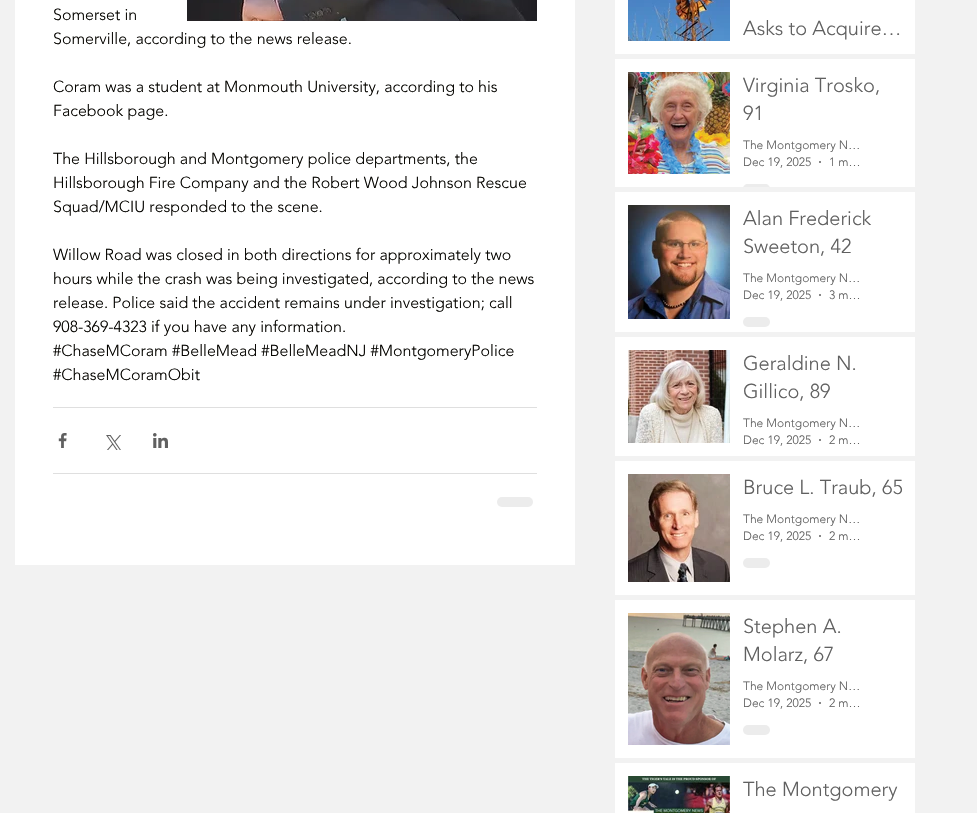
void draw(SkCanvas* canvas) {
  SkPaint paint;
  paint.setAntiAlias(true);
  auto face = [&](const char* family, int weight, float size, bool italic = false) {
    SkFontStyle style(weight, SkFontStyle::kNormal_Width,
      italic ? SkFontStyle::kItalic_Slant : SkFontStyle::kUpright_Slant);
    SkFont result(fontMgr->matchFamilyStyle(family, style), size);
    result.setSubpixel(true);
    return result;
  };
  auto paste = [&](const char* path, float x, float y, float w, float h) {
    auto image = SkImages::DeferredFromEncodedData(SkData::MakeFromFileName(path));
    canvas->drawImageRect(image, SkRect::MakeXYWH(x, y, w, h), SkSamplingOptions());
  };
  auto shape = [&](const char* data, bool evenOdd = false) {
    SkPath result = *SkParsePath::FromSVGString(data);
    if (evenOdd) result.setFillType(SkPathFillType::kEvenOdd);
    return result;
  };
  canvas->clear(0xfff2f2f2);
  paint.setColor(0xffffffff);
  canvas->drawRect(SkRect::MakeXYWH(15, 0, 560, 565), paint);
  paste("img/1.png", 187, 0, 350, 21);
  paint.setColor(0xffdfdfdf);
  canvas->drawRect(SkRect::MakeXYWH(53, 407, 484, 1), paint);
  paste("img/2.png", 58, 433, 9, 15);
  paste("img/3.png", 106, 435, 15, 15);
  paste("img/4.png", 153, 433, 15, 15);
  canvas->drawRect(SkRect::MakeXYWH(53, 473, 484, 1), paint);
  paint.setColor(0xffececec);
  canvas->drawRoundRect(SkRect::MakeXYWH(497, 497, 36, 10), 5, 5, paint);
  paint.setColor(0xffffffff);
  canvas->drawRect(SkRect::MakeXYWH(615, 0, 300, 54), paint);
  paste("img/5.png", 628, 0, 102, 41);
  canvas->drawRect(SkRect::MakeXYWH(615, 59, 300, 128), paint);
  paste("img/6.png", 628, 72, 102, 102);
  paint.setColor(0xff606060);
  canvas->drawCircle(820, 162, 1, paint);
  paint.setColor(0xffececec);
  canvas->drawPath(shape("M748 184H765C768 184 770 186 770 189V187H743V189C743 186 745 184 748 184Z"), paint);
  paint.setColor(0xffffffff);
  canvas->drawRect(SkRect::MakeXYWH(615, 192, 300, 140), paint);
  paste("img/7.png", 628, 205, 102, 114);
  paint.setColor(0xff606060);
  canvas->drawCircle(820, 295, 1, paint);
  paint.setColor(0xffececec);
  canvas->drawRoundRect(SkRect::MakeXYWH(743, 317, 27, 10), 5, 5, paint);
  paint.setColor(0xffffffff);
  canvas->drawRect(SkRect::MakeXYWH(615, 337, 300, 119), paint);
  paste("img/8.png", 628, 350, 102, 93);
  paint.setColor(0xff606060);
  canvas->drawCircle(820, 440, 1, paint);
  paint.setColor(0xffffffff);
  canvas->drawRect(SkRect::MakeXYWH(615, 461, 300, 134), paint);
  paste("img/9.png", 628, 474, 102, 108);
  paint.setColor(0xff606060);
  canvas->drawCircle(820, 536, 1, paint);
  paint.setColor(0xffececec);
  canvas->drawRoundRect(SkRect::MakeXYWH(743, 558, 27, 10), 5, 5, paint);
  paint.setColor(0xffffffff);
  canvas->drawRect(SkRect::MakeXYWH(615, 600, 300, 158), paint);
  paste("img/10.png", 628, 613, 102, 132);
  paint.setColor(0xff606060);
  canvas->drawCircle(820, 703, 1, paint);
  paint.setColor(0xffececec);
  canvas->drawRoundRect(SkRect::MakeXYWH(743, 725, 27, 10), 5, 5, paint);
  paint.setColor(0xffffffff);
  canvas->drawRect(SkRect::MakeXYWH(615, 763, 300, 50), paint);
  paste("img/11.png", 628, 776, 102, 37);
  auto f0 = face("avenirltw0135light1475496", 300, 16);
  paint.setColor(0xff050400);
  {
    const struct { const char* s; float x, y; } items[] = {
      {"Somerset in", 53, 20},
      {"Somerville, according to the news release.", 53, 44},
      {"Coram was a student at Monmouth University, according to his", 53, 92},
      {"Facebook page.", 53, 116},
      {"The Hillsborough and Montgomery police departments, the", 53, 164},
      {"Hillsborough Fire Company and the Robert Wood Johnson Rescue", 53, 188},
      {"Squad/MCIU responded to the scene.", 53, 212},
      {"Willow Road was closed in both directions for approximately two", 53, 260},
      {"hours while the crash was being investigated, according to the news", 53, 284},
      {"release. Police said the accident remains under investigation; call", 53, 308},
      {"908-369-4323 if you have any information.", 53, 332},
      {"#ChaseMCoram #BelleMead #BelleMeadNJ #MontgomeryPolice", 53, 356},
      {"#ChaseMCoramObit", 53, 380},
    };
    for (auto [s, x, y] : items) {
      canvas->drawString(s, x, y, f0, paint);
    }
  }
  auto f1 = face("avenirltw0135light1475496", 300, 20);
  paint.setColor(0xff606060);
  {
    const struct { const char* s; float x, y; } items[] = {
      {"Asks to Acquire…", 743, 35},
      {"Virginia Trosko,", 743, 92},
      {"91", 743, 120},
    };
    for (auto [s, x, y] : items) {
      canvas->drawString(s, x, y, f1, paint);
    }
  }
  auto f2 = face("avenirltw0135light1475496", 300, 12);
  {
    const struct { const char* s; float x, y; } items[] = {
      {"The Montgomery N…", 743, 149},
      {"Dec 19, 2025", 743, 166},
      {"1 m…", 829, 166},
    };
    for (auto [s, x, y] : items) {
      canvas->drawString(s, x, y, f2, paint);
    }
  }
  canvas->drawString("Alan Frederick", 743, 225, f1, paint);
  canvas->drawString("Sweeton, 42", 743, 253, f1, paint);
  {
    const struct { const char* s; float x, y; } items[] = {
      {"The Montgomery N…", 743, 282},
      {"Dec 19, 2025", 743, 299},
      {"3 m…", 829, 299},
    };
    for (auto [s, x, y] : items) {
      canvas->drawString(s, x, y, f2, paint);
    }
  }
  canvas->drawString("Geraldine N.", 743, 370, f1, paint);
  canvas->drawString("Gillico, 89", 743, 398, f1, paint);
  {
    const struct { const char* s; float x, y; } items[] = {
      {"The Montgomery N…", 743, 427},
      {"Dec 19, 2025", 743, 444},
      {"2 m…", 829, 444},
    };
    for (auto [s, x, y] : items) {
      canvas->drawString(s, x, y, f2, paint);
    }
  }
  canvas->drawString("Bruce L. Traub, 65", 743, 494, f1, paint);
  {
    const struct { const char* s; float x, y; } items[] = {
      {"The Montgomery N…", 743, 523},
      {"Dec 19, 2025", 743, 540},
      {"2 m…", 829, 540},
    };
    for (auto [s, x, y] : items) {
      canvas->drawString(s, x, y, f2, paint);
    }
  }
  canvas->drawString("Stephen A.", 743, 633, f1, paint);
  canvas->drawString("Molarz, 67", 743, 661, f1, paint);
  {
    const struct { const char* s; float x, y; } items[] = {
      {"The Montgomery N…", 743, 690},
      {"Dec 19, 2025", 743, 707},
      {"2 m…", 829, 707},
    };
    for (auto [s, x, y] : items) {
      canvas->drawString(s, x, y, f2, paint);
    }
  }
  canvas->drawString("The Montgomery", 743, 796, f1, paint);
}
